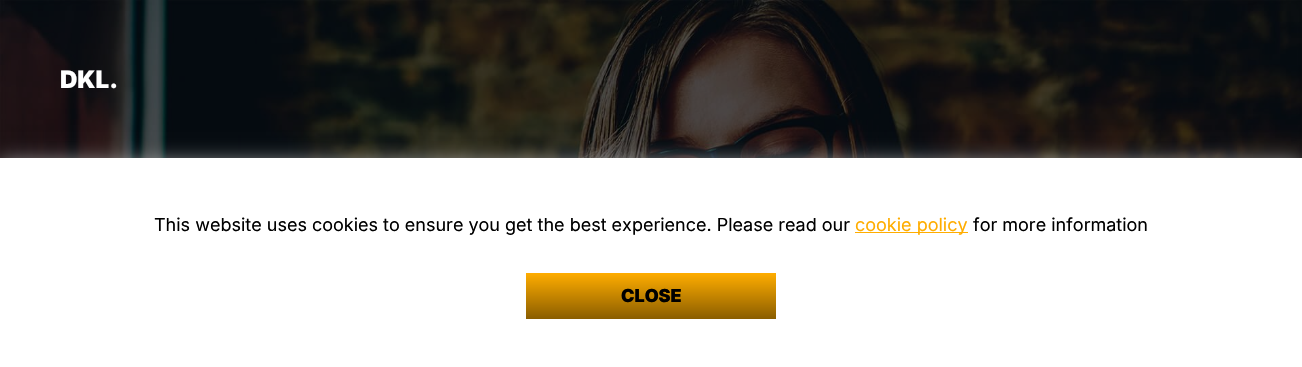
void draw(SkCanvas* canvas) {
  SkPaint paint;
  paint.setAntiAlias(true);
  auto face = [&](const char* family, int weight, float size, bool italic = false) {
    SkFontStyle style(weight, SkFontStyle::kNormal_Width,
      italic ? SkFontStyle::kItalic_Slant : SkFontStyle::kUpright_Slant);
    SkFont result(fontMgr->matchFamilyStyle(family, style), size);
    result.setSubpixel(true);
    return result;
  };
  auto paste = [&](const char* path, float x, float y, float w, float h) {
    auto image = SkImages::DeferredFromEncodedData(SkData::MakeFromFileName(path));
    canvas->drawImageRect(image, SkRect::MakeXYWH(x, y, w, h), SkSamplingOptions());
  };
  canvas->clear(0xffffffff);
  paste("img/1.png", 0, 0, 1302, 158);
  paint.setColor(0xffa4a4a4);
  paint.setMaskFilter(SkMaskFilter::MakeBlur(kNormal_SkBlurStyle, 10));
  canvas->drawRect(SkRect::MakeXYWH(0, 162, 1302, 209), paint);
  paint.setMaskFilter(nullptr);
  paint.setColor(0xffffffff);
  canvas->drawRect(SkRect::MakeXYWH(0, 158, 1302, 209), paint);
  paint.setColor(0xffffad00);
  canvas->drawRect(SkRect::MakeXYWH(855, 232, 113, 1), paint);
  {
    const SkColor colors[] = {0xff8a5d00, 0xffffad00};
    const float stops[] = {0, 1};
    const SkPoint ends[] = {{651, 319}, {651, 273}};
    paint.setShader(SkGradientShader::MakeLinear(ends, colors, stops, 2, SkTileMode::kClamp));
    paint.setAlpha(255);
  }
  canvas->drawRect(SkRect::MakeXYWH(526, 273, 250, 46), paint);
  auto f0 = face("Inter", 900, 24);
  paint.setShader(nullptr);
  paint.setColor(0xffffffff);
  canvas->drawString("DKL.", 60, 88, f0, paint);
  auto f1 = face("Inter", 400, 18);
  paint.setColor(0xff000000);
  canvas->drawString("This website uses cookies to ensure you get the best experience. Please read our", 154, 231, f1, paint);
  paint.setColor(0xffffad00);
  canvas->drawString("cookie policy", 855, 231, f1, paint);
  paint.setColor(0xff000000);
  canvas->drawString("for more information", 973, 231, f1, paint);
  auto f2 = face("Inter", 900, 18);
  canvas->drawString("CLOSE", 621, 302, f2, paint);
}
